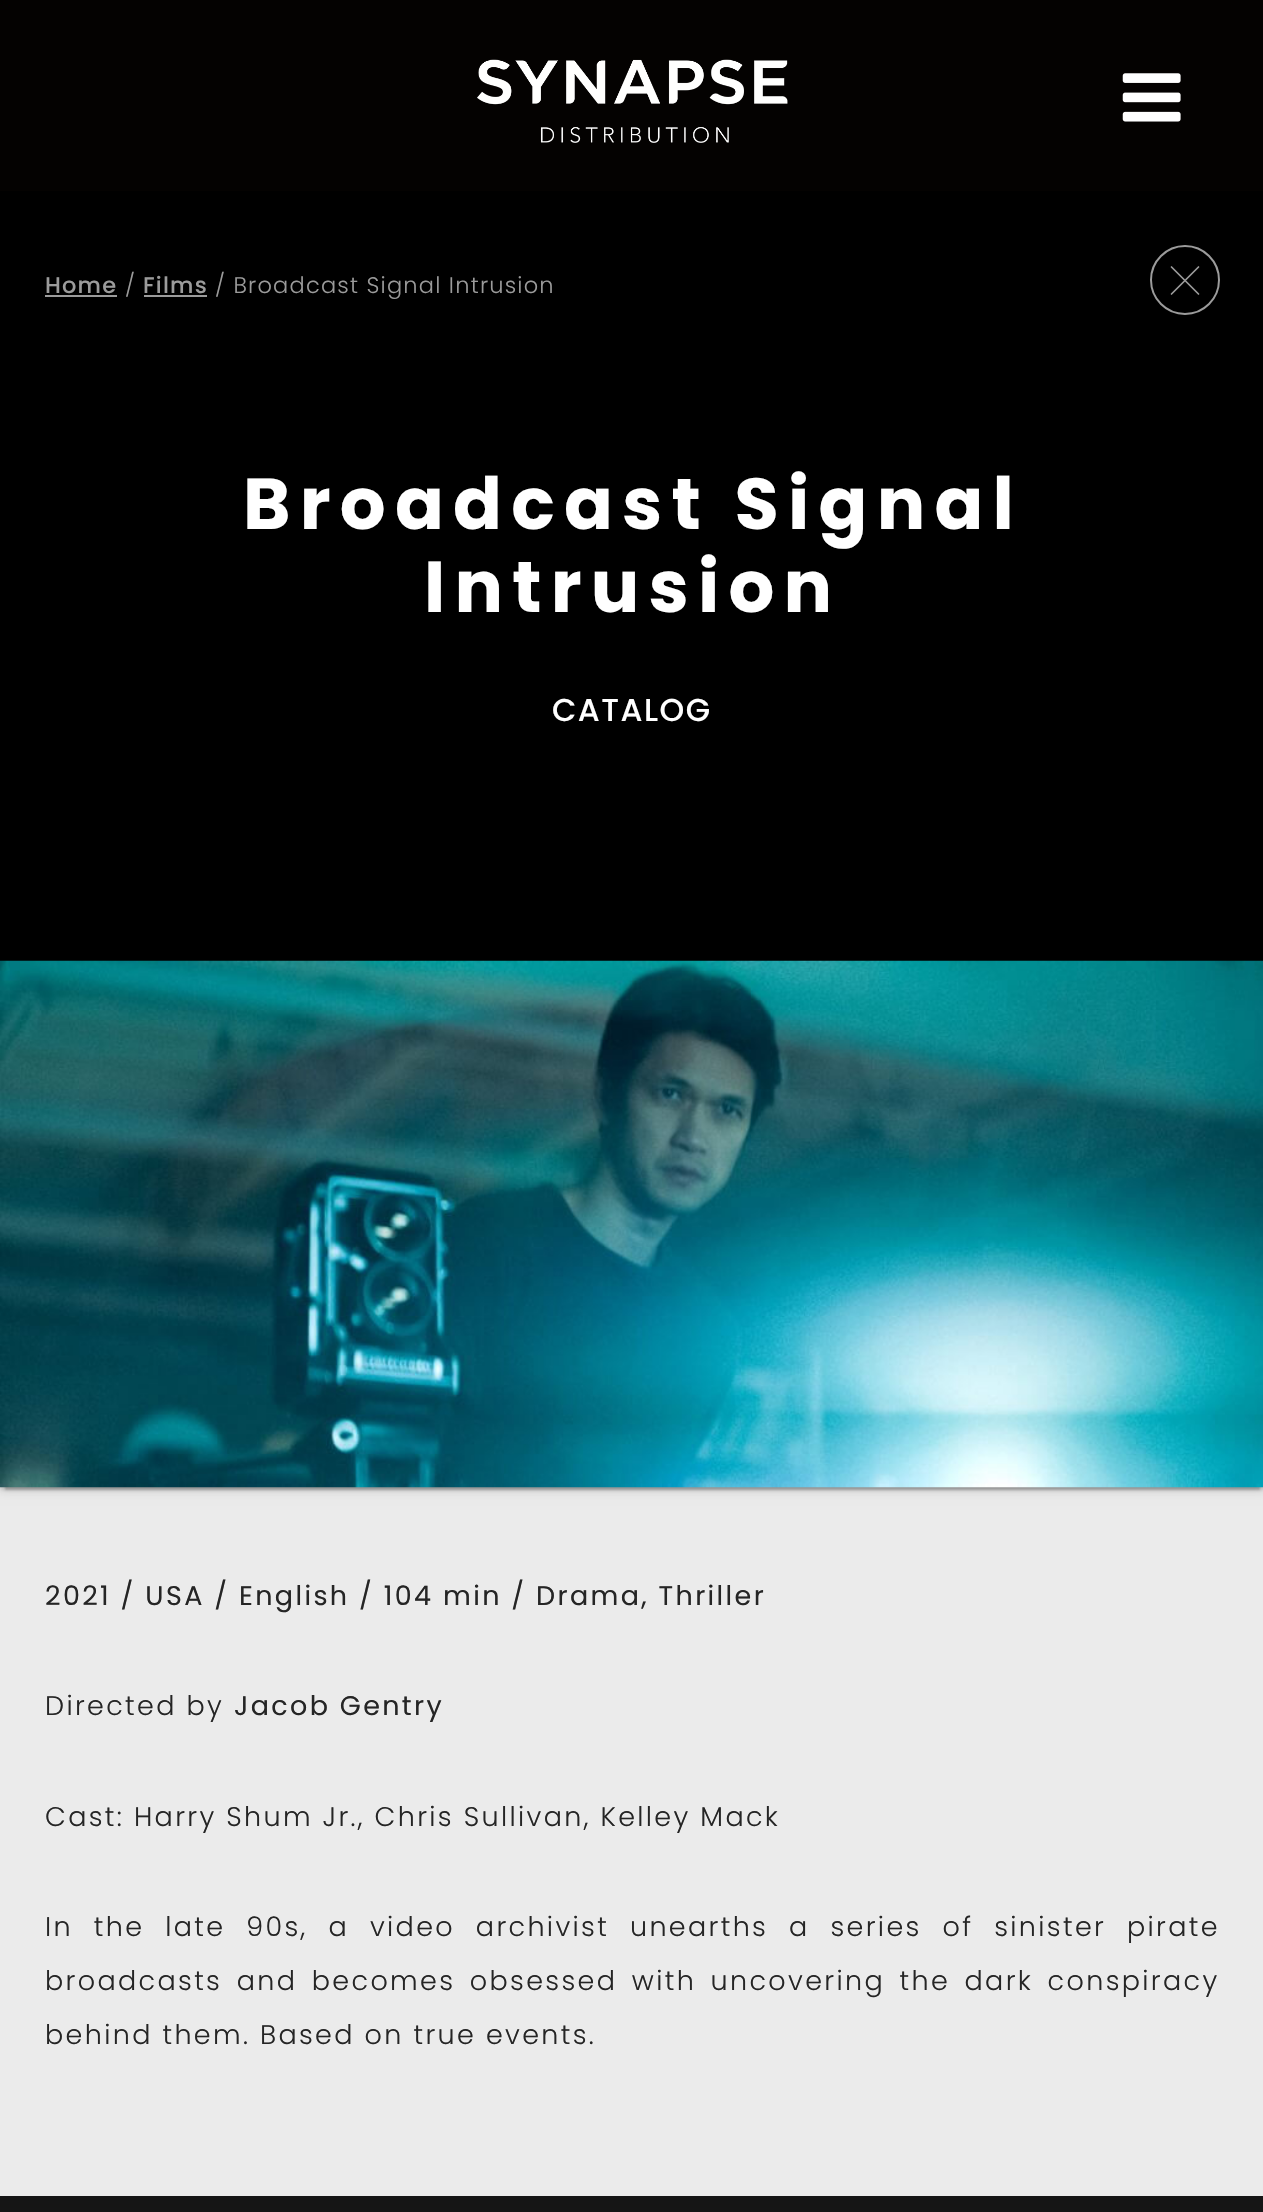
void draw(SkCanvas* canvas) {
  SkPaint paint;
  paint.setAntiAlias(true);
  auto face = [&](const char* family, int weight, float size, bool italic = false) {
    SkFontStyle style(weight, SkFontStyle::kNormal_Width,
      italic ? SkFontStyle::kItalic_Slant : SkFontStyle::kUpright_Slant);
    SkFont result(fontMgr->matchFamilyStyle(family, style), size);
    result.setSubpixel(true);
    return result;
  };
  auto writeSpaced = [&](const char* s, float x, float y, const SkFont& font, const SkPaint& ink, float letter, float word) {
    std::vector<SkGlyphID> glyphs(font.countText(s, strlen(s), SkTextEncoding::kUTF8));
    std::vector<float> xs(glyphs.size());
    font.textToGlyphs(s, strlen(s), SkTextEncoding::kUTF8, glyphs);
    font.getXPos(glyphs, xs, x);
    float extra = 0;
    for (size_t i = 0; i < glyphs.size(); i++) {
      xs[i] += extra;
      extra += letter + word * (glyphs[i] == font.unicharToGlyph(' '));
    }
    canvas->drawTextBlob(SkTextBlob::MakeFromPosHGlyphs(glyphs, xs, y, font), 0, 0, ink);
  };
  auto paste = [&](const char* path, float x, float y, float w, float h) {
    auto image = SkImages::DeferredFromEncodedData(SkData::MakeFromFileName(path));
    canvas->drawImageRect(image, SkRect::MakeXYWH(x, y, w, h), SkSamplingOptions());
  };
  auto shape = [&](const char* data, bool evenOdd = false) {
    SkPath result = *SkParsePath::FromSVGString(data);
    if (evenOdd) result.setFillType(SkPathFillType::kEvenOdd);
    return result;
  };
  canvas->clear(0xffebebeb);
  paint.setColor(0xff040201);
  canvas->drawRect(SkRect::MakeXYWH(0, 0, 1263, 191), paint);
  paste("img/1.png", 477, 59, 311, 84);
  paste("img/2.png", 1122, 73, 59, 49);
  {
    const struct { float x, y, w, h; SkColor color; } items[] = {
      {0, 191, 1263, 770, 0xff000000},
      {45, 295, 72, 2, 0xff9b9b9b},
      {144, 295, 63, 2, 0xff9b9b9b},
    };
    for (auto [x, y, w, h, color] : items) {
      paint.setColor(color);
      canvas->drawRect(SkRect::MakeXYWH(x, y, w, h), paint);
    }
  }
  paint.setStroke(true);
  paint.setStrokeWidth(2);
  canvas->drawCircle(1185, 280, 34, paint);
  paint.setStrokeWidth(1.7f);
  paint.setStrokeCap(SkPaint::kRound_Cap);
  paint.setStrokeJoin(SkPaint::kRound_Join);
  canvas->drawPath(shape("M1171.5 267L1198.5 294M1171.5 294L1198.5 267"), paint);
  paint.setStroke(false);
  paint.setColor(0x1f000000);
  paint.setMaskFilter(SkMaskFilter::MakeBlur(kNormal_SkBlurStyle, 5.5f));
  canvas->drawRect(SkRect::MakeXYWH(0, 963, 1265, 527), paint);
  paint.setMaskFilter(nullptr);
  paint.setColor(0x33000000);
  paint.setMaskFilter(SkMaskFilter::MakeBlur(kNormal_SkBlurStyle, 1));
  canvas->drawRect(SkRect::MakeXYWH(5, 972, 1255, 518), paint);
  paint.setMaskFilter(nullptr);
  paint.setColor(0x24000000);
  paint.setMaskFilter(SkMaskFilter::MakeBlur(kNormal_SkBlurStyle, 2));
  canvas->drawRect(SkRect::MakeXYWH(0, 963, 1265, 527), paint);
  paint.setMaskFilter(nullptr);
  paste("img/3.png", 0, 960, 1263, 528);
  paint.setColor(0xff151515);
  canvas->drawRect(SkRect::MakeXYWH(0, 2196, 1263, 16), paint);
  auto f0 = face("Poppins", 500, 22.5f);
  paint.setColor(0xff9b9b9b);
  writeSpaced("Home", 45, 293, f0, paint, 1.2f, 0);
  auto f1 = face("Poppins", 300, 22.5f);
  writeSpaced("/", 125, 293, f1, paint, 1.2f, 0);
  writeSpaced("Films", 143, 293, f0, paint, 1.2f, 0);
  writeSpaced("/ Broadcast Signal Intrusion", 215, 293, f1, paint, 1.2f, 0);
  auto f2 = face("Poppins", 700, 72);
  paint.setColor(0xffffffff);
  writeSpaced("Broadcast Signal", 243, 529, f2, paint, 9.25f, 0);
  writeSpaced("Intrusion", 424, 612, f2, paint, 9.25f, 0);
  auto f3 = face("Poppins", 500, 31.5f);
  writeSpaced("CATALOG", 552, 721, f3, paint, 1.5f, 0);
  auto f4 = face("Poppins", 400, 27);
  paint.setColor(0xff252525);
  writeSpaced("2021 / USA / English / 104 min / Drama, Thriller", 45, 1605, f4, paint, 2.35f, 0);
  auto f5 = face("Poppins", 300, 27);
  writeSpaced("Directed by", 45, 1715, f5, paint, 2.35f, 0);
  writeSpaced("Jacob Gentry", 234, 1715, f4, paint, 2.35f, 0);
  writeSpaced("Cast: Harry Shum Jr., Chris Sullivan, Kelley Mack", 45, 1826, f5, paint, 2.35f, 0);
  writeSpaced("In the late 90s, a video archivist unearths a series of sinister pirate", 45, 1936, f5, paint, 2.35f, 11.1f);
  writeSpaced("broadcasts and becomes obsessed with uncovering the dark conspiracy", 45, 1990, f5, paint, 2.35f, 4.75f);
  writeSpaced("behind them. Based on true events.", 45, 2044, f5, paint, 2.35f, 0);
}
